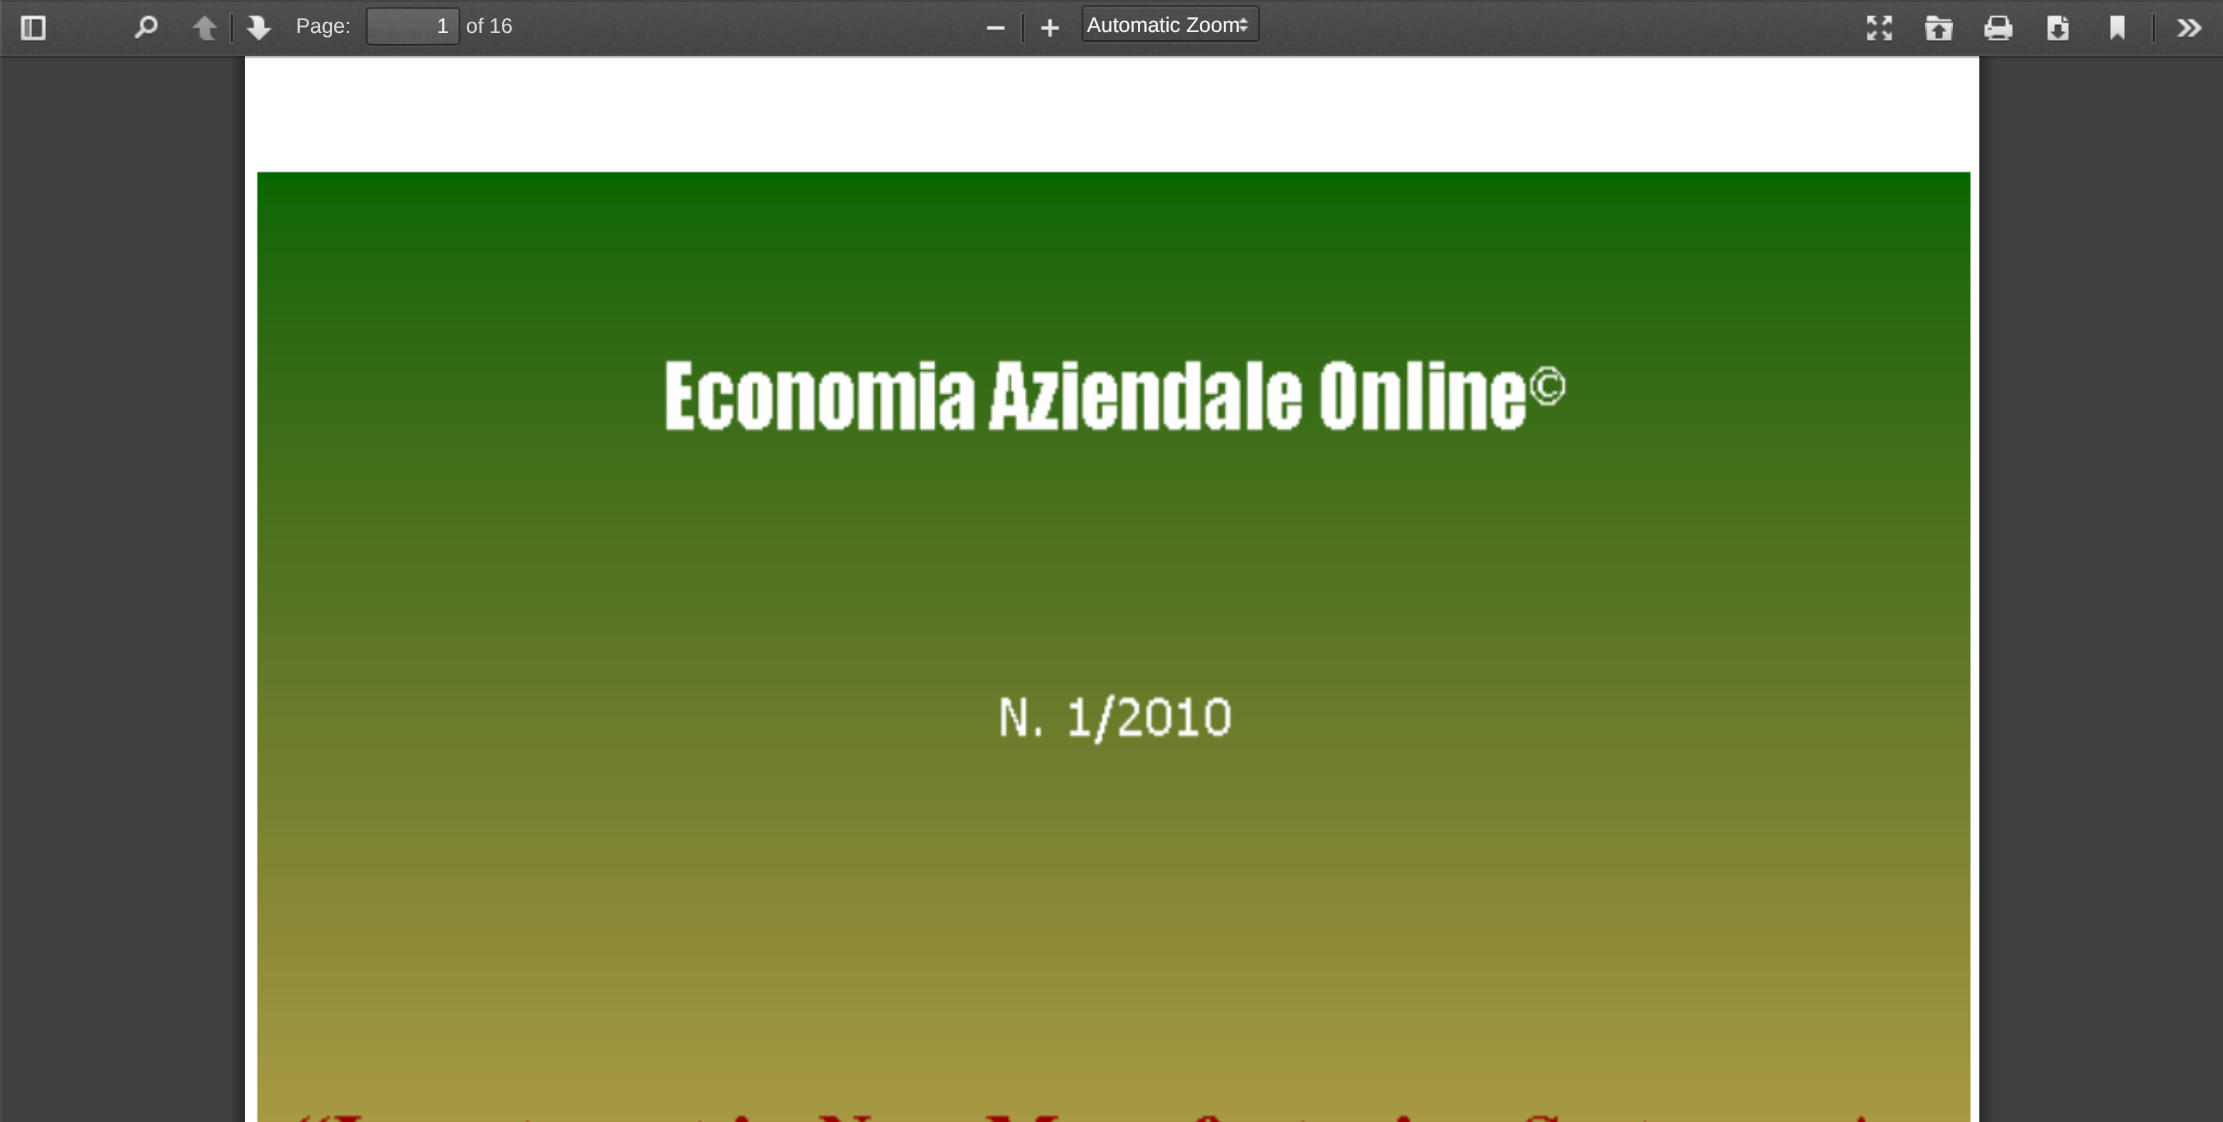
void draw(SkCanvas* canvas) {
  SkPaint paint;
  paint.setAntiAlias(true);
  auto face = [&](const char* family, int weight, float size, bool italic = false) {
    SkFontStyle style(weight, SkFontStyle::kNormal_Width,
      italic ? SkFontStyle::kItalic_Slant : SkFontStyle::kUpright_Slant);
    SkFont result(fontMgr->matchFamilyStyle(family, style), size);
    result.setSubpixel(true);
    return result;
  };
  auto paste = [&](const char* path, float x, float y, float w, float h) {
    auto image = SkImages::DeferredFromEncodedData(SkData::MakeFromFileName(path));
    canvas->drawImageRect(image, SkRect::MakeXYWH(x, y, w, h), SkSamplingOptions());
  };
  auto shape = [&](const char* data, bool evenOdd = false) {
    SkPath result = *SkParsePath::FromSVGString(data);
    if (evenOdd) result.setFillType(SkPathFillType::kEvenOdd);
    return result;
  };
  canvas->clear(0xff404040);
  paint.setColor(0xff4a4a4a);
  canvas->drawRect(SkRect::MakeXYWH(0, 56, 2, 1066), paint);
  paint.setColor(0xffffffff);
  canvas->drawRect(SkRect::MakeXYWH(245, 56, 1734, 1), paint);
  paste("img/15.png", 232, 56, 1761, 1066);
  paste("img/16.png", 245, 56, 1735, 1066);
  canvas->save();
  canvas->clipRect(SkRect::MakeXYWH(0, 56, 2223, 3));
  paint.setColor(0x1a000000);
  paint.setMaskFilter(SkMaskFilter::MakeBlur(kNormal_SkBlurStyle, 1));
  canvas->drawRect(SkRect::MakeXYWH(0, 2, 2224, 56), paint);
  paint.setMaskFilter(nullptr);
  canvas->restore();
  paint.setColor(0x26000000);
  canvas->drawRect(SkRect::MakeXYWH(0, 56, 2223, 2), paint);
  paste("img/1.png", 0, 0, 2223, 56);
  {
    const struct { float x, y, w, h; SkColor color; } items[] = {
      {0, 54, 2223, 2, 0x0dffffff},
      {0, 0, 2223, 2, 0x26000000},
      {0, 0, 2, 56, 0x14ffffff},
    };
    for (auto [x, y, w, h, color] : items) {
      paint.setColor(color);
      canvas->drawRect(SkRect::MakeXYWH(x, y, w, h), paint);
    }
  }
  paste("img/2.png", 20, 15, 26, 27);
  paste("img/3.png", 134, 15, 24, 26);
  paste("img/4.png", 192, 15, 26, 27);
  paint.setStroke(true);
  paint.setStrokeWidth(2);
  canvas->drawRect(SkRect::MakeXYWH(230, 13, 3, 30), paint);
  paint.setStroke(false);
  paint.setColor(0x80000000);
  canvas->drawRect(SkRect::MakeXYWH(231, 14, 2, 28), paint);
  paste("img/5.png", 246, 15, 26, 27);
  paint.setColor(0x0dffffff);
  canvas->drawPath(shape("M366 43C366 45 368 47 370 47H456C458 47 460 45 460 43L458 45L384 46C381 46 368 48 366 43Z"), paint);
  paint.setColor(0x17ffffff);
  canvas->drawRoundRect(SkRect::MakeXYWH(368, 9, 91, 35), 2, 2, paint);
  {
    const SkColor colors[] = {0x0dffffff, 0x00ffffff};
    const float stops[] = {0, 1};
    const SkPoint ends[] = {{413, 9}, {413, 44}};
    paint.setShader(SkGradientShader::MakeLinear(ends, colors, stops, 2, SkTileMode::kClamp));
    paint.setAlpha(255);
  }
  canvas->drawRect(SkRect::MakeXYWH(368, 9, 91, 20), paint);
  paint.setShader(nullptr);
  paint.setColor(0x0d000000);
  canvas->drawPath(shape("M369 10H457C458 10 458 11 458 12V44C459 43 459 43 459 42V11C459 10 458 9 457 9H370C369 9 368 10 368 11V12C368 11 368 10 369 10Z"), paint);
  paint.setStroke(true);
  paint.setStrokeWidth(1.8f);
  paint.setColor(0x52000000);
  canvas->drawPath(shape("M367.5 8.5H368C369.5 7 434.5 8 442 8H457L458.5 8.5"), paint);
  paint.setColor(0x61000000);
  canvas->drawPath(shape("M458.5 8.5C459 9 459.5 10 459.5 10.5V42C459.5 42.5 459 43.5 458.5 44"), paint);
  paint.setColor(0x6b000000);
  canvas->drawPath(shape("M458.5 44L457 44.5H442C434.5 44.5 369.5 45.5 368 44H367.5"), paint);
  paint.setColor(0x61000000);
  canvas->drawPath(shape("M367.5 44C367 43.5 366.5 42.5 366.5 42V10.5C366.5 10 367 9 367.5 8.5"), paint);
  paste("img/6.png", 986, 25, 19, 7);
  paint.setStrokeWidth(2);
  paint.setColor(0x14ffffff);
  canvas->drawRect(SkRect::MakeXYWH(1021, 13, 3, 30), paint);
  paint.setStroke(false);
  paint.setColor(0x80000000);
  canvas->drawRect(SkRect::MakeXYWH(1022, 14, 2, 28), paint);
  paste("img/7.png", 1040, 18, 20, 21);
  paint.setColor(0x0dffffff);
  canvas->drawPath(shape("M1082 40C1082 42 1084 44 1086 44H1256C1258 44 1260 42 1260 40V38C1260 40 1258 42 1256 42H1085Z"), paint);
  paste("img/8.png", 1238, 17, 11, 15);
  canvas->drawPath(shape("M1085 9H1256C1257 9 1258 10 1258 10C1258 9 1258 7 1256 7H1085C1083 7 1083 9 1083 10Z"), paint);
  paint.setStroke(true);
  paint.setStrokeWidth(1.8f);
  paint.setColor(0x52000000);
  canvas->drawPath(shape("M1083 7L1085 6H1256.5L1258.5 7"), paint);
  paint.setColor(0x61000000);
  canvas->drawPath(shape("M1258.5 7C1259 7.5 1259 8 1259 9V38.5C1259 39 1259 40 1258.5 40.5"), paint);
  paint.setColor(0x6b000000);
  canvas->drawPath(shape("M1258.5 40.5L1256.5 41H1085L1083 40.5"), paint);
  paint.setColor(0x61000000);
  canvas->drawPath(shape("M1083 40.5C1082.5 40 1082.5 39 1082.5 38.5V9C1082.5 8 1082.5 7.5 1083 7"), paint);
  paste("img/9.png", 1866, 15, 27, 27);
  paste("img/10.png", 1925, 15, 28, 27);
  paste("img/11.png", 1984, 15, 29, 27);
  paste("img/12.png", 2047, 15, 22, 27);
  paste("img/13.png", 2110, 15, 15, 27);
  paint.setStrokeWidth(2);
  paint.setColor(0x14ffffff);
  canvas->drawRect(SkRect::MakeXYWH(2152, 13, 3, 30), paint);
  paint.setStroke(false);
  paint.setColor(0x80000000);
  canvas->drawRect(SkRect::MakeXYWH(2153, 14, 2, 28), paint);
  paste("img/14.png", 2176, 18, 27, 21);
  auto f0 = face("Liberation Sans", 400, 21);
  paint.setColor(0xffd9d9d9);
  canvas->drawString("Page:", 296, 33, f0, paint);
  paint.setColor(0xfff2f2f2);
  canvas->drawString("1", 437, 33, f0, paint);
  paint.setColor(0xffd9d9d9);
  canvas->drawString("of 16", 466, 33, f0, paint);
  paint.setColor(0xfff2f2f2);
  canvas->drawString("Automatic Zoom", 1087, 32, f0, paint);
}
